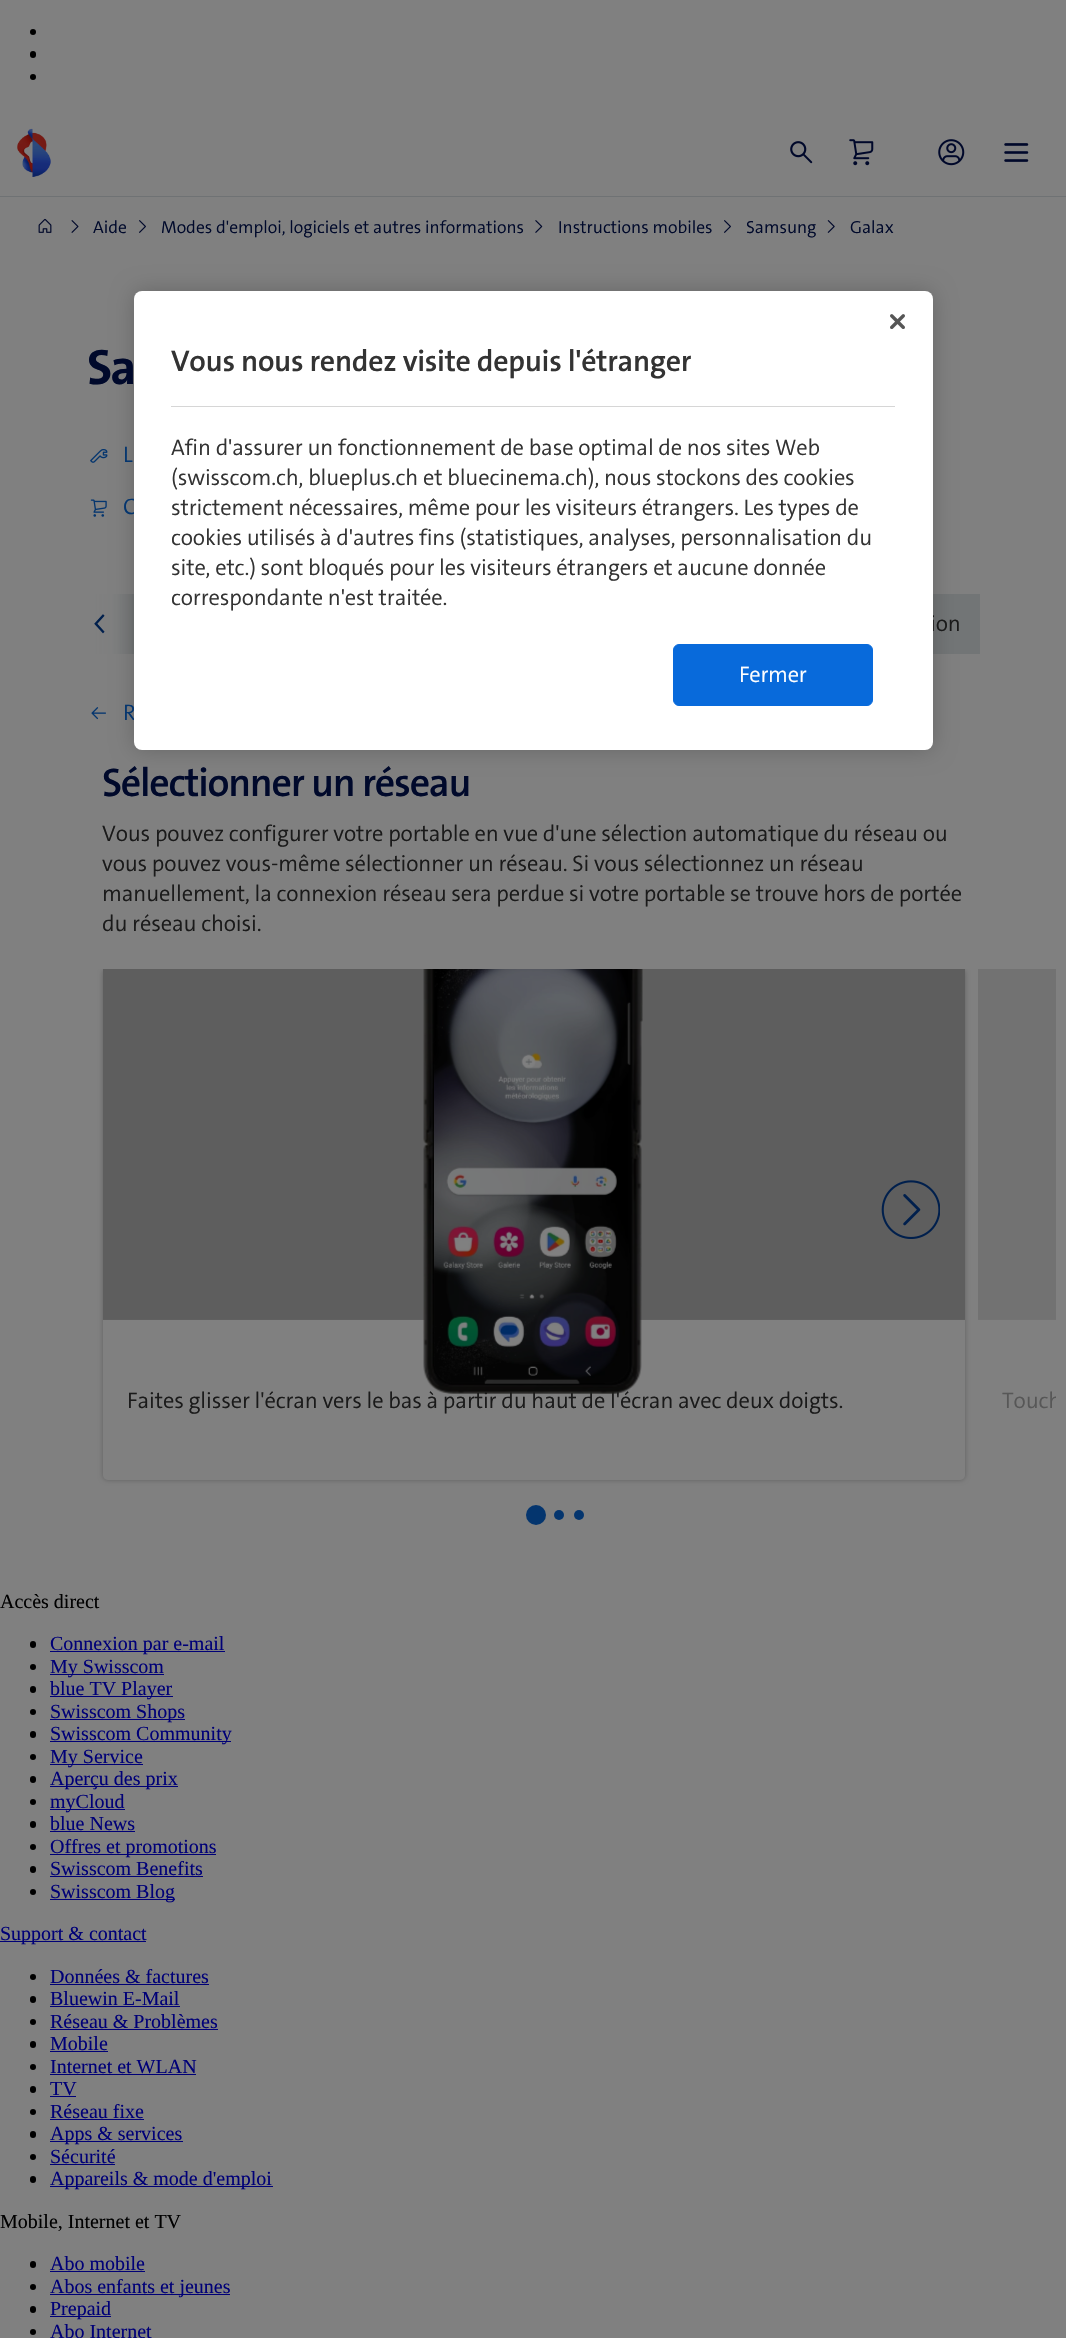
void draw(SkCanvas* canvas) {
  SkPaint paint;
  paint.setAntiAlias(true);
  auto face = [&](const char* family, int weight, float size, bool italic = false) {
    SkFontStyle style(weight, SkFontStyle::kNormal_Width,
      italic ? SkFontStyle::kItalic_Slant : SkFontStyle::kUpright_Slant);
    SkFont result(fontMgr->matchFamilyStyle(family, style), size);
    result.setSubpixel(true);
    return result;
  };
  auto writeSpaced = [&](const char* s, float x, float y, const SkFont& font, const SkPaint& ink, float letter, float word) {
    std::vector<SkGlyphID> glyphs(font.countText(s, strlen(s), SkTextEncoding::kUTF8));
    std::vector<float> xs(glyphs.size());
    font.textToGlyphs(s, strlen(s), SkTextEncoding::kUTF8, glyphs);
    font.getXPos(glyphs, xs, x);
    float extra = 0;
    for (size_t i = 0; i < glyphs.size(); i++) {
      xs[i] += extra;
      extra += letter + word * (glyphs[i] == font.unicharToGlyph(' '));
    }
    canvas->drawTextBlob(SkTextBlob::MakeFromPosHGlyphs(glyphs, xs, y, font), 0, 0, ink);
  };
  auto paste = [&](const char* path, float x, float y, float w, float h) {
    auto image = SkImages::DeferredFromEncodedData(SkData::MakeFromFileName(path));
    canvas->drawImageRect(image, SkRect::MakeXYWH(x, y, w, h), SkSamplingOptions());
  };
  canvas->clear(0xff808080);
  paint.setColor(0xff000000);
  canvas->drawCircle(33, 32, 3, paint);
  canvas->drawRoundRect(SkRect::MakeXYWH(30, 51, 6, 7), 3, 3, paint);
  canvas->drawCircle(33, 77, 3, paint);
  paste("img/1.png", 17, 128, 34, 49);
  paste("img/2.png", 790, 141, 23, 23);
  paste("img/3.png", 849, 139, 25, 27);
  paste("img/4.png", 938, 139, 27, 27);
  paste("img/5.png", 1004, 143, 25, 19);
  paint.setColor(0xff6f7274);
  canvas->drawRect(SkRect::MakeXYWH(0, 196, 1066, 1), paint);
  paste("img/6.png", 38, 218, 14, 15);
  paste("img/7.png", 71, 220, 8, 13);
  paste("img/8.png", 139, 220, 7, 13);
  paste("img/9.png", 535, 220, 8, 13);
  paste("img/8.png", 724, 220, 7, 13);
  paste("img/10.png", 827, 220, 8, 13);
  paste("img/11.png", 90, 449, 18, 14);
  paste("img/12.png", 90, 499, 17, 18);
  paint.setColor(0xff727576);
  canvas->drawRect(SkRect::MakeXYWH(89, 594, 45, 60), paint);
  {
    const SkColor colors[] = {0x00808080, 0xd9808080, 0xff808080};
    const float stops[] = {0, 0.5f, 1};
    const SkPoint ends[] = {{138, 624}, {88, 624}};
    paint.setShader(SkGradientShader::MakeLinear(ends, colors, stops, 3, SkTileMode::kClamp));
    paint.setAlpha(255);
  }
  canvas->drawRect(SkRect::MakeXYWH(89, 594, 43, 60), paint);
  paste("img/13.png", 94, 614, 11, 20);
  paint.setShader(nullptr);
  paint.setColor(0xff727576);
  canvas->drawRect(SkRect::MakeXYWH(933, 594, 47, 60), paint);
  paste("img/14.png", 91, 707, 15, 13);
  canvas->save();
  canvas->clipRect(SkRect::MakeXYWH(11, 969, 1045, 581));
  paint.setColor(0x40000000);
  paint.setMaskFilter(SkMaskFilter::MakeBlur(kNormal_SkBlurStyle, 2.5f));
  canvas->drawRoundRect(SkRect::MakeXYWH(103, 969, 862, 511), 5, 5, paint);
  paint.setMaskFilter(nullptr);
  canvas->restore();
  paint.setColor(0xff808080);
  canvas->drawRoundRect(SkRect::MakeXYWH(103, 969, 862, 511), 5, 5, paint);
  paint.setColor(0xff5e5e5e);
  canvas->drawRect(SkRect::MakeXYWH(103, 969, 862, 350), paint);
  paste("img/15.png", 881, 1180, 59, 59);
  {
    const struct { float x, y, w, h; SkColor color; } items[] = {
      {103, 1319, 862, 1, 0xff606060},
      {978, 969, 78, 350, 0xff727272},
      {978, 1319, 78, 1, 0xff737373},
    };
    for (auto [x, y, w, h, color] : items) {
      paint.setColor(color);
      canvas->drawRect(SkRect::MakeXYWH(x, y, w, h), paint);
    }
  }
  paint.setColor(0xff04356e);
  canvas->drawCircle(536, 1515, 10, paint);
  canvas->drawCircle(559, 1515, 5, paint);
  canvas->drawCircle(579, 1515, 5, paint);
  paint.setColor(0xff000000);
  canvas->drawRoundRect(SkRect::MakeXYWH(30, 1641, 6, 7), 3, 3, paint);
  paint.setColor(0xff000077);
  canvas->drawRect(SkRect::MakeXYWH(50, 1651, 175, 1), paint);
  paint.setColor(0xff000000);
  canvas->drawCircle(33, 1667, 3, paint);
  paint.setColor(0xff000077);
  canvas->drawRect(SkRect::MakeXYWH(50, 1674, 114, 1), paint);
  paint.setColor(0xff000000);
  canvas->drawRoundRect(SkRect::MakeXYWH(30, 1686, 6, 7), 3, 3, paint);
  paint.setColor(0xff000077);
  canvas->drawRect(SkRect::MakeXYWH(50, 1696, 123, 1), paint);
  paint.setColor(0xff000000);
  canvas->drawCircle(33, 1712, 3, paint);
  paint.setColor(0xff000077);
  canvas->drawRect(SkRect::MakeXYWH(50, 1719, 135, 1), paint);
  paint.setColor(0xff000000);
  canvas->drawRoundRect(SkRect::MakeXYWH(30, 1731, 6, 7), 3, 3, paint);
  paint.setColor(0xff000077);
  canvas->drawRect(SkRect::MakeXYWH(50, 1741, 181, 1), paint);
  paint.setColor(0xff000000);
  canvas->drawCircle(33, 1757, 3, paint);
  paint.setColor(0xff000077);
  canvas->drawRect(SkRect::MakeXYWH(50, 1764, 93, 1), paint);
  paint.setColor(0xff000000);
  canvas->drawRoundRect(SkRect::MakeXYWH(30, 1776, 6, 7), 3, 3, paint);
  paint.setColor(0xff000077);
  canvas->drawRect(SkRect::MakeXYWH(50, 1786, 128, 1), paint);
  paint.setColor(0xff000000);
  canvas->drawCircle(33, 1802, 3, paint);
  paint.setColor(0xff000077);
  canvas->drawRect(SkRect::MakeXYWH(50, 1809, 75, 1), paint);
  paint.setColor(0xff000000);
  canvas->drawRoundRect(SkRect::MakeXYWH(30, 1821, 6, 7), 3, 3, paint);
  paint.setColor(0xff000077);
  canvas->drawRect(SkRect::MakeXYWH(50, 1831, 85, 1), paint);
  paint.setColor(0xff000000);
  canvas->drawCircle(33, 1847, 3, paint);
  paint.setColor(0xff000077);
  canvas->drawRect(SkRect::MakeXYWH(50, 1854, 166, 1), paint);
  paint.setColor(0xff000000);
  canvas->drawRoundRect(SkRect::MakeXYWH(30, 1866, 6, 7), 3, 3, paint);
  paint.setColor(0xff000077);
  canvas->drawRect(SkRect::MakeXYWH(50, 1876, 153, 1), paint);
  paint.setColor(0xff000000);
  canvas->drawCircle(33, 1892, 3, paint);
  paint.setColor(0xff000077);
  canvas->drawRect(SkRect::MakeXYWH(50, 1899, 125, 1), paint);
  canvas->drawRect(SkRect::MakeXYWH(0, 1941, 146, 1), paint);
  paint.setColor(0xff000000);
  canvas->drawCircle(33, 1977, 3, paint);
  paint.setColor(0xff000077);
  canvas->drawRect(SkRect::MakeXYWH(50, 1984, 159, 1), paint);
  paint.setColor(0xff000000);
  canvas->drawRoundRect(SkRect::MakeXYWH(30, 1996, 6, 7), 3, 3, paint);
  paint.setColor(0xff000077);
  canvas->drawRect(SkRect::MakeXYWH(50, 2006, 130, 1), paint);
  paint.setColor(0xff000000);
  canvas->drawCircle(33, 2022, 3, paint);
  paint.setColor(0xff000077);
  canvas->drawRect(SkRect::MakeXYWH(50, 2029, 168, 1), paint);
  paint.setColor(0xff000000);
  canvas->drawRoundRect(SkRect::MakeXYWH(30, 2041, 6, 7), 3, 3, paint);
  paint.setColor(0xff000077);
  canvas->drawRect(SkRect::MakeXYWH(50, 2051, 58, 1), paint);
  paint.setColor(0xff000000);
  canvas->drawCircle(33, 2067, 3, paint);
  paint.setColor(0xff000077);
  canvas->drawRect(SkRect::MakeXYWH(50, 2074, 146, 1), paint);
  paint.setColor(0xff000000);
  canvas->drawRoundRect(SkRect::MakeXYWH(30, 2086, 6, 7), 3, 3, paint);
  paint.setColor(0xff000077);
  canvas->drawRect(SkRect::MakeXYWH(50, 2096, 26, 1), paint);
  paint.setColor(0xff000000);
  canvas->drawCircle(33, 2112, 3, paint);
  paint.setColor(0xff000077);
  canvas->drawRect(SkRect::MakeXYWH(50, 2119, 94, 1), paint);
  paint.setColor(0xff000000);
  canvas->drawRoundRect(SkRect::MakeXYWH(30, 2131, 6, 7), 3, 3, paint);
  paint.setColor(0xff000077);
  canvas->drawRect(SkRect::MakeXYWH(50, 2141, 133, 1), paint);
  paint.setColor(0xff000000);
  canvas->drawCircle(33, 2157, 3, paint);
  paint.setColor(0xff000077);
  canvas->drawRect(SkRect::MakeXYWH(50, 2164, 65, 1), paint);
  paint.setColor(0xff000000);
  canvas->drawRoundRect(SkRect::MakeXYWH(30, 2176, 6, 7), 3, 3, paint);
  paint.setColor(0xff000077);
  canvas->drawRect(SkRect::MakeXYWH(50, 2186, 223, 1), paint);
  paint.setColor(0xff000000);
  canvas->drawRoundRect(SkRect::MakeXYWH(30, 2261, 6, 7), 3, 3, paint);
  paint.setColor(0xff000077);
  canvas->drawRect(SkRect::MakeXYWH(50, 2271, 95, 1), paint);
  paint.setColor(0xff000000);
  canvas->drawCircle(33, 2287, 3, paint);
  paint.setColor(0xff000077);
  canvas->drawRect(SkRect::MakeXYWH(50, 2294, 180, 1), paint);
  paint.setColor(0xff000000);
  canvas->drawRoundRect(SkRect::MakeXYWH(30, 2306, 6, 7), 3, 3, paint);
  paint.setColor(0xff000077);
  canvas->drawRect(SkRect::MakeXYWH(50, 2316, 61, 1), paint);
  paint.setColor(0xff000000);
  canvas->drawCircle(33, 2332, 3, paint);
  paint.setColor(0x33000000);
  paint.setMaskFilter(SkMaskFilter::MakeBlur(kNormal_SkBlurStyle, 11));
  canvas->drawRoundRect(SkRect::MakeXYWH(134, 291, 799, 459), 8, 8, paint);
  paint.setMaskFilter(nullptr);
  auto f0 = face("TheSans", 300, 17.5f);
  paint.setColor(0xff00092b);
  {
    const struct { const char* s; float x, y; } items[] = {
      {"Aide", 93, 233},
      {"Modes d'emploi, logiciels et autres informations", 161, 233},
      {"Instructions mobiles", 558, 233},
      {"Samsung", 746, 233},
      {"Galax", 850, 233},
    };
    for (auto [s, x, y] : items) {
      canvas->drawString(s, x, y, f0, paint);
    }
  }
  auto f1 = face("TheSans", 700, 50);
  writeSpaced("Sa", 87, 384, f1, paint, -2, 0);
  auto f2 = face("TheSans", 300, 22.5f);
  paint.setColor(0xff04356e);
  writeSpaced("L", 123, 462, f2, paint, -0.12f, 0);
  writeSpaced("C", 123, 514, f2, paint, -0.12f, 0);
  paint.setColor(0xff1a1a1a);
  writeSpaced("ion", 930, 631, f2, paint, -0.12f, 0);
  paint.setColor(0xff04356e);
  writeSpaced("R", 123, 720, f2, paint, -0.12f, 0);
  auto f3 = face("TheSans", 600, 40);
  paint.setColor(0xff00092b);
  writeSpaced("Sélectionner un réseau", 102, 796, f3, paint, -1.25f, 0);
  paint.setColor(0xff1a1a1a);
  {
    const struct { const char* s; float x, y; } items[] = {
      {"Vous pouvez configurer votre portable en vue d'une sélection automatique du réseau ou", 102, 841},
      {"vous pouvez vous-même sélectionner un réseau. Si vous sélectionnez un réseau", 102, 871},
      {"manuellement, la connexion réseau sera perdue si votre portable se trouve hors de portée", 102, 901},
      {"du réseau choisi.", 102, 931},
      {"Faites glisser l'écran vers le bas à partir du haut de l'écran avec deux doigts.", 127, 1408},
    };
    for (auto [s, x, y] : items) {
      writeSpaced(s, x, y, f2, paint, -0.12f, 0);
    }
  }
  paste("img/16.png", 423, 969, 220, 425);
  paste("img/17.png", 434, 969, 197, 415);
  canvas->save();
  canvas->clipRect(SkRect::MakeXYWH(11, 969, 1045, 581));
  paint.setColor(0xff575757);
  writeSpaced("Touch", 1002, 1408, f2, paint, -0.12f, 0);
  canvas->restore();
  auto f4 = face("Liberation Serif", 400, 20);
  paint.setColor(0xff000000);
  canvas->drawString("Accès direct", 0, 1608, f4, paint);
  paint.setColor(0xff000077);
  {
    const struct { const char* s; float x, y; } items[] = {
      {"Connexion par e-mail", 50, 1650},
      {"My Swisscom", 50, 1673},
      {"blue TV Player", 50, 1695},
      {"Swisscom Shops", 50, 1718},
      {"Swisscom Community", 50, 1740},
      {"My Service", 50, 1763},
      {"Aperçu des prix", 50, 1785},
      {"myCloud", 50, 1808},
      {"blue News", 50, 1830},
      {"Offres et promotions", 50, 1853},
      {"Swisscom Benefits", 50, 1875},
      {"Swisscom Blog", 50, 1898},
      {"Support & contact", 0, 1940},
      {"Données & factures", 50, 1983},
      {"Bluewin E-Mail", 50, 2005},
      {"Réseau & Problèmes", 50, 2028},
      {"Mobile", 50, 2050},
      {"Internet et WLAN", 50, 2073},
      {"TV", 50, 2095},
      {"Réseau fixe", 50, 2118},
      {"Apps & services", 50, 2140},
      {"Sécurité", 50, 2163},
      {"Appareils & mode d'emploi", 50, 2185},
    };
    for (auto [s, x, y] : items) {
      canvas->drawString(s, x, y, f4, paint);
    }
  }
  paint.setColor(0xff000000);
  canvas->drawString("Mobile, Internet et TV", 0, 2228, f4, paint);
  paint.setColor(0xff000077);
  {
    const struct { const char* s; float x, y; } items[] = {
      {"Abo mobile", 50, 2270},
      {"Abos enfants et jeunes", 50, 2293},
      {"Prepaid", 50, 2315},
      {"Abo Internet", 50, 2338},
    };
    for (auto [s, x, y] : items) {
      canvas->drawString(s, x, y, f4, paint);
    }
  }
  paint.setColor(0xffffffff);
  canvas->drawRoundRect(SkRect::MakeXYWH(134, 291, 799, 459), 8, 8, paint);
  paste("img/18.png", 890, 314, 15, 15);
  auto f5 = face("TheSans", 600, 30);
  paint.setColor(0xff333333);
  writeSpaced("Vous nous rendez visite depuis l'étranger", 171, 371, f5, paint, -0.3f, 0);
  paint.setColor(0xffd6d6d6);
  canvas->drawRect(SkRect::MakeXYWH(171, 406, 724, 1), paint);
  paint.setColor(0xff333333);
  {
    const struct { const char* s; float x, y; } items[] = {
      {"Afin d'assurer un fonctionnement de base optimal de nos sites Web", 171, 455},
      {"(swisscom.ch, blueplus.ch et bluecinema.ch), nous stockons des cookies", 171, 485},
      {"strictement nécessaires, même pour les visiteurs étrangers. Les types de", 171, 515},
      {"cookies utilisés à d'autres fins (statistiques, analyses, personnalisation du", 171, 545},
      {"site, etc.) sont bloqués pour les visiteurs étrangers et aucune donnée", 171, 575},
      {"correspondante n'est traitée.", 171, 605},
    };
    for (auto [s, x, y] : items) {
      writeSpaced(s, x, y, f2, paint, -0.12f, 0);
    }
  }
  paint.setColor(0xff086adb);
  canvas->drawRoundRect(SkRect::MakeXYWH(673.5f, 644.5f, 199, 61), 5.5f, 5.5f, paint);
  paint.setStroke(true);
  paint.setStrokeWidth(1);
  canvas->drawRoundRect(SkRect::MakeXYWH(673.5f, 644.5f, 199, 61), 5.5f, 5.5f, paint);
  paint.setStroke(false);
  paint.setColor(0xffffffff);
  writeSpaced("Fermer", 739, 682, f2, paint, -0.3f, 0);
}
